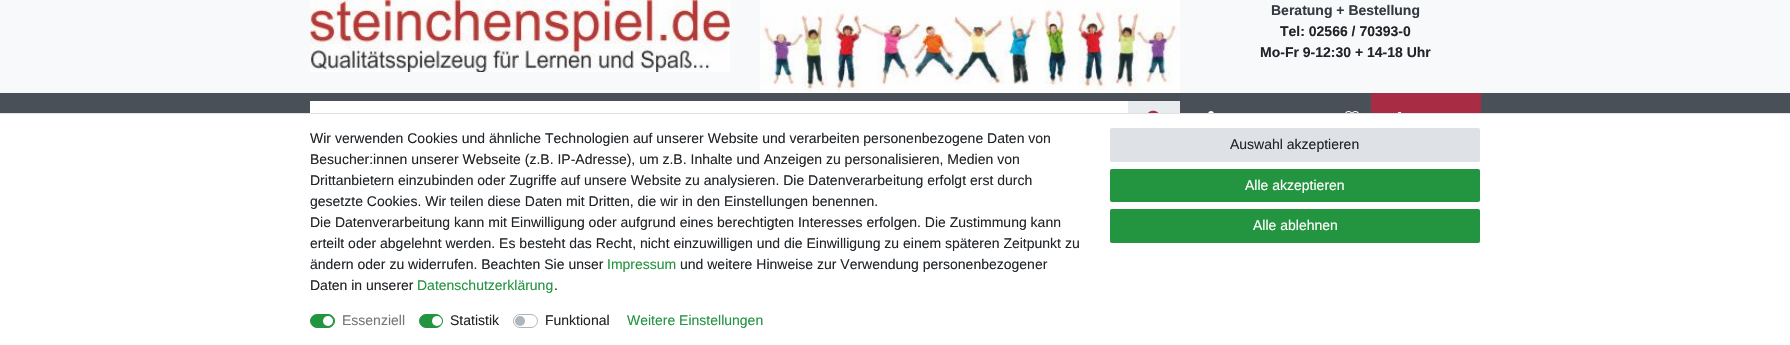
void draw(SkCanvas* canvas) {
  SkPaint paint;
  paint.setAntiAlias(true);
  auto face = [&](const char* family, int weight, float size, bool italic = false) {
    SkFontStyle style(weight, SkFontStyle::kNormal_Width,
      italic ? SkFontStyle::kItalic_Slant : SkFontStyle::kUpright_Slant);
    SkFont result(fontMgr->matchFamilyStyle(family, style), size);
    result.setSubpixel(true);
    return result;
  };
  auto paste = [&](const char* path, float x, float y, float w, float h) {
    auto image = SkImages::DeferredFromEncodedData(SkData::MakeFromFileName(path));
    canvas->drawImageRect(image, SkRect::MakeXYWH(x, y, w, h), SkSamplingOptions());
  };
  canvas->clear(0xfff8f9fa);
  paste("img/1.png", 310, 0, 420, 72);
  paste("img/2.png", 760, 0, 420, 93);
  {
    const struct { float x, y, w, h; SkColor color; } items[] = {
      {0, 93, 1790, 20, 0xff495057},
      {310, 101, 818, 12, 0xffffffff},
      {1128, 101, 52, 12, 0xffe9ecef},
    };
    for (auto [x, y, w, h, color] : items) {
      paint.setColor(color);
      canvas->drawRect(SkRect::MakeXYWH(x, y, w, h), paint);
    }
  }
  paste("img/3.png", 1148, 110, 11, 3);
  paste("img/4.png", 1208, 111, 6, 2);
  paste("img/5.png", 1345, 111, 14, 2);
  paint.setColor(0xffa92c45);
  canvas->drawRect(SkRect::MakeXYWH(1371, 93, 110, 20), paint);
  paste("img/6.png", 1398, 112, 4, 1);
  paint.setColor(0xffffffff);
  canvas->drawRect(SkRect::MakeXYWH(0, 114, 1790, 231), paint);
  paint.setColor(0xffdee2e6);
  canvas->drawRect(SkRect::MakeXYWH(0, 113, 1790, 1), paint);
  paint.setColor(0xff239440);
  canvas->drawRoundRect(SkRect::MakeXYWH(310.5f, 314.5f, 24, 13), 6.5f, 6.5f, paint);
  paint.setStroke(true);
  paint.setStrokeWidth(1);
  canvas->drawRoundRect(SkRect::MakeXYWH(310.5f, 314.5f, 24, 13), 6.5f, 6.5f, paint);
  paint.setStroke(false);
  paint.setColor(0xffffffff);
  canvas->drawCircle(328, 321, 5, paint);
  paint.setColor(0xff239440);
  canvas->drawRoundRect(SkRect::MakeXYWH(419.5f, 314.5f, 23, 13), 6.5f, 6.5f, paint);
  paint.setStroke(true);
  canvas->drawRoundRect(SkRect::MakeXYWH(419.5f, 314.5f, 23, 13), 6.5f, 6.5f, paint);
  paint.setStroke(false);
  paint.setColor(0xffffffff);
  canvas->drawCircle(437, 321, 5, paint);
  paint.setStroke(true);
  paint.setColor(0xffadb5bd);
  canvas->drawRoundRect(SkRect::MakeXYWH(513.5f, 314.5f, 24, 13), 6.5f, 6.5f, paint);
  paint.setStroke(false);
  canvas->drawCircle(520, 321, 5, paint);
  paint.setColor(0xffdee2e6);
  canvas->drawRoundRect(SkRect::MakeXYWH(1110.5f, 128.5f, 369, 33), 1, 1, paint);
  paint.setStroke(true);
  canvas->drawRoundRect(SkRect::MakeXYWH(1110.5f, 128.5f, 369, 33), 1, 1, paint);
  paint.setStroke(false);
  paint.setColor(0xff239440);
  canvas->drawRoundRect(SkRect::MakeXYWH(1110.5f, 169.5f, 369, 32), 1, 1, paint);
  paint.setStroke(true);
  canvas->drawRoundRect(SkRect::MakeXYWH(1110.5f, 169.5f, 369, 32), 1, 1, paint);
  paint.setStroke(false);
  canvas->drawRoundRect(SkRect::MakeXYWH(1110.5f, 209.5f, 369, 33), 1, 1, paint);
  paint.setStroke(true);
  canvas->drawRoundRect(SkRect::MakeXYWH(1110.5f, 209.5f, 369, 33), 1, 1, paint);
  auto f0 = face("Liberation Sans", 700, 14);
  paint.setStroke(false);
  paint.setColor(0xff343a40);
  canvas->drawString("Beratung + Bestellung", 1271, 15, f0, paint);
  paint.setColor(0xff212529);
  canvas->drawString("Tel: 02566 / 70393-0", 1280, 36, f0, paint);
  canvas->drawString("Mo-Fr 9-12:30 + 14-18 Uhr", 1260, 57, f0, paint);
  auto f1 = face("Liberation Sans", 400, 14);
  {
    const struct { const char* s; float x, y; } items[] = {
      {"Wir verwenden Cookies und ähnliche Technologien auf unserer Website und verarbeiten personenbezogene Daten von", 310, 143},
      {"Besucher:innen unserer Webseite (z.B. IP-Adresse), um z.B. Inhalte und Anzeigen zu personalisieren, Medien von", 310, 164},
      {"Drittanbietern einzubinden oder Zugriffe auf unsere Website zu analysieren. Die Datenverarbeitung erfolgt erst durch", 310, 185},
      {"gesetzte Cookies. Wir teilen diese Daten mit Dritten, die wir in den Einstellungen benennen.", 310, 206},
      {"Die Datenverarbeitung kann mit Einwilligung oder aufgrund eines berechtigten Interesses erfolgen. Die Zustimmung kann", 310, 227},
      {"erteilt oder abgelehnt werden. Es besteht das Recht, nicht einzuwilligen und die Einwilligung zu einem späteren Zeitpunkt zu", 310, 248},
      {"ändern oder zu widerrufen. Beachten Sie unser", 310, 269},
    };
    for (auto [s, x, y] : items) {
      canvas->drawString(s, x, y, f1, paint);
    }
  }
  paint.setColor(0xff239440);
  canvas->drawString("Impressum", 607, 269, f1, paint);
  paint.setColor(0xff212529);
  canvas->drawString("und weitere Hinweise zur Verwendung personenbezogener", 680, 269, f1, paint);
  canvas->drawString("Daten in unserer", 310, 290, f1, paint);
  paint.setColor(0xff239440);
  canvas->drawString("Datenschutzerklärung", 417, 290, f1, paint);
  paint.setColor(0xff212529);
  canvas->drawString(".", 554, 290, f1, paint);
  paint.setColor(0xff767676);
  canvas->drawString("Essenziell", 342, 325, f1, paint);
  paint.setColor(0xff212529);
  canvas->drawString("Statistik", 450, 325, f1, paint);
  canvas->drawString("Funktional", 545, 325, f1, paint);
  paint.setColor(0xff239440);
  canvas->drawString("Weitere Einstellungen", 627, 325, f1, paint);
  paint.setColor(0xff212529);
  canvas->drawString("Auswahl akzeptieren", 1230, 149, f1, paint);
  paint.setColor(0xffffffff);
  canvas->drawString("Alle akzeptieren", 1245, 190, f1, paint);
  canvas->drawString("Alle ablehnen", 1253, 230, f1, paint);
}
